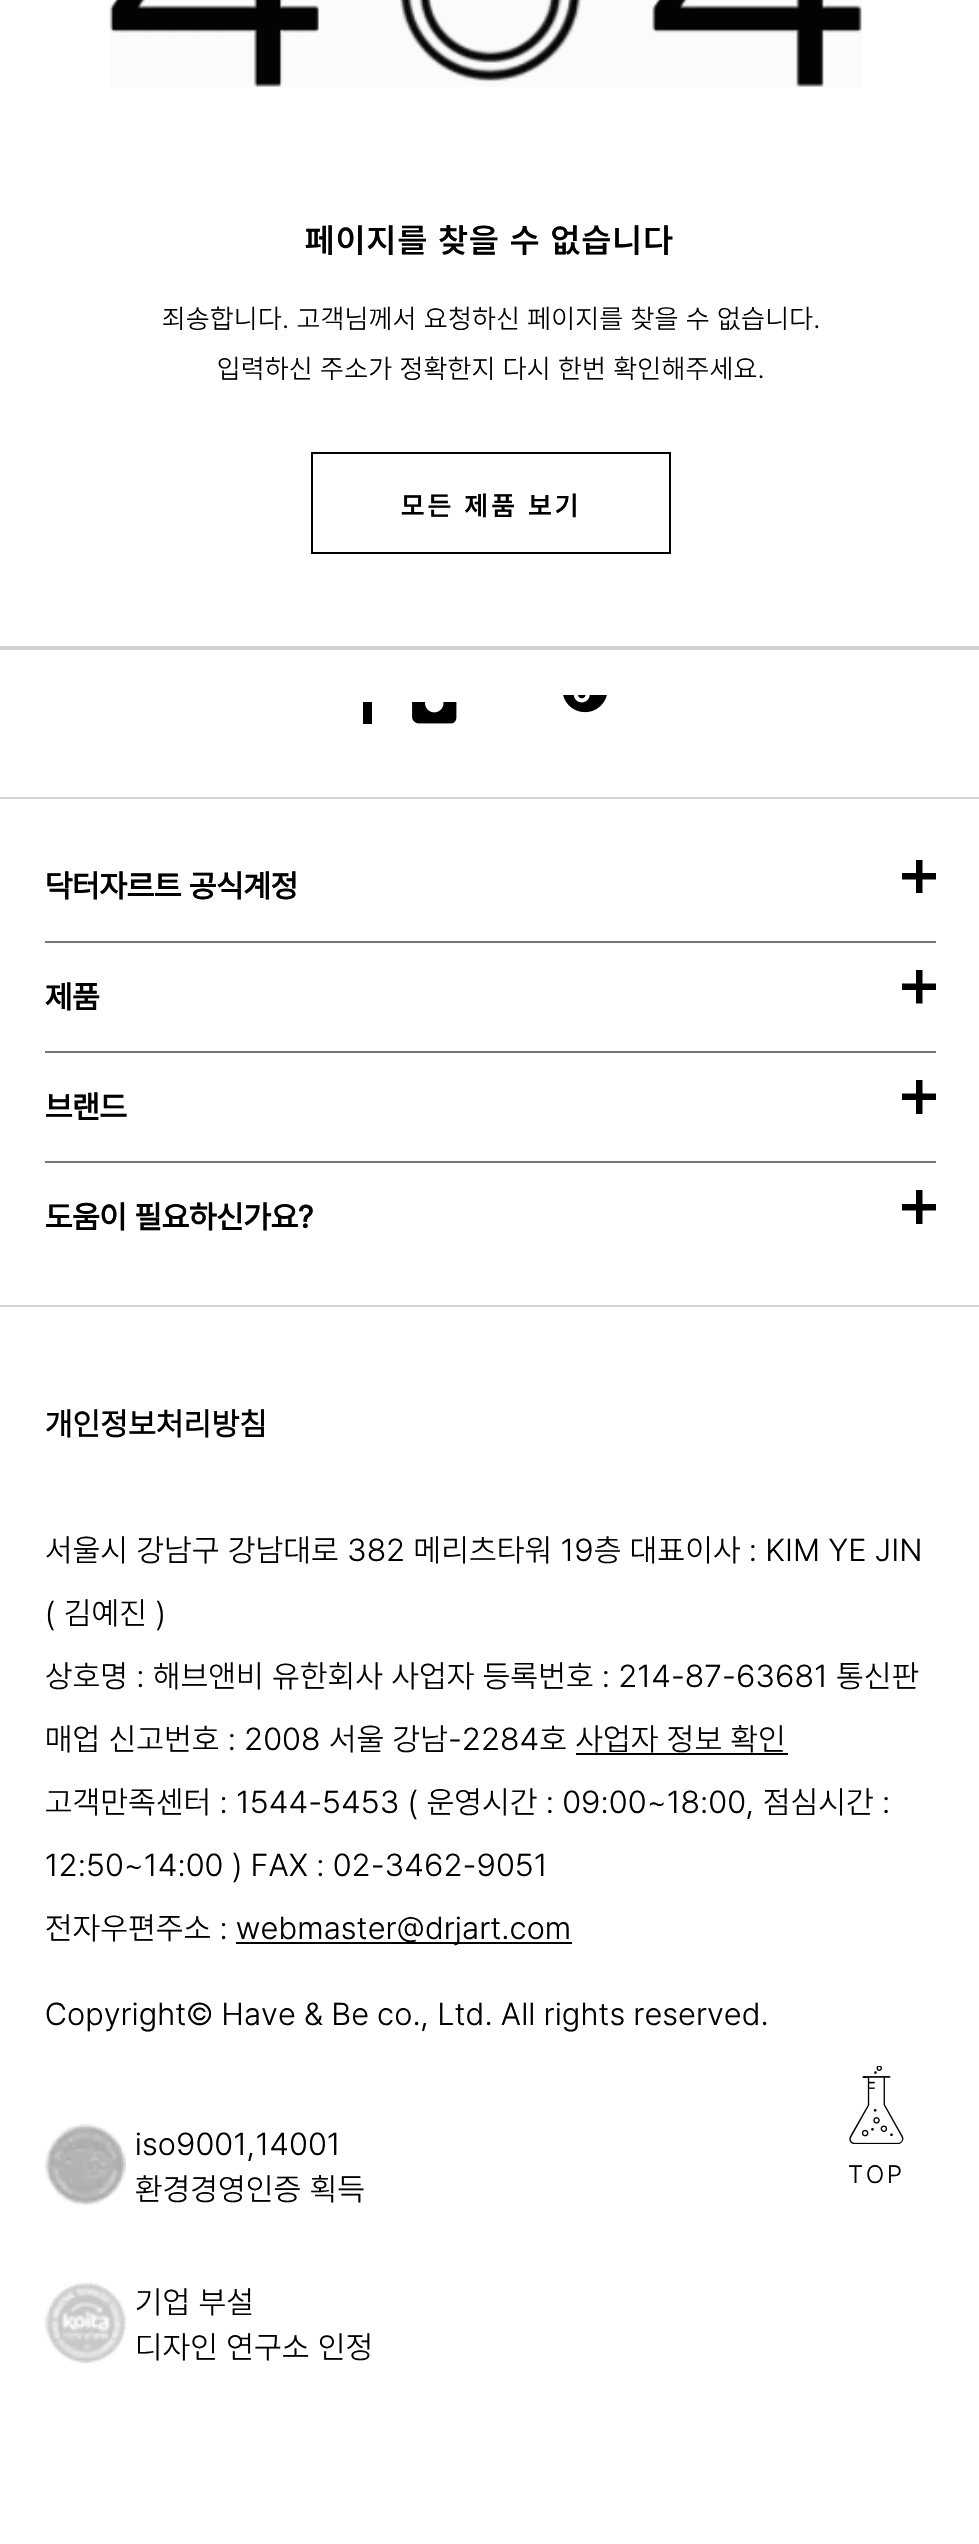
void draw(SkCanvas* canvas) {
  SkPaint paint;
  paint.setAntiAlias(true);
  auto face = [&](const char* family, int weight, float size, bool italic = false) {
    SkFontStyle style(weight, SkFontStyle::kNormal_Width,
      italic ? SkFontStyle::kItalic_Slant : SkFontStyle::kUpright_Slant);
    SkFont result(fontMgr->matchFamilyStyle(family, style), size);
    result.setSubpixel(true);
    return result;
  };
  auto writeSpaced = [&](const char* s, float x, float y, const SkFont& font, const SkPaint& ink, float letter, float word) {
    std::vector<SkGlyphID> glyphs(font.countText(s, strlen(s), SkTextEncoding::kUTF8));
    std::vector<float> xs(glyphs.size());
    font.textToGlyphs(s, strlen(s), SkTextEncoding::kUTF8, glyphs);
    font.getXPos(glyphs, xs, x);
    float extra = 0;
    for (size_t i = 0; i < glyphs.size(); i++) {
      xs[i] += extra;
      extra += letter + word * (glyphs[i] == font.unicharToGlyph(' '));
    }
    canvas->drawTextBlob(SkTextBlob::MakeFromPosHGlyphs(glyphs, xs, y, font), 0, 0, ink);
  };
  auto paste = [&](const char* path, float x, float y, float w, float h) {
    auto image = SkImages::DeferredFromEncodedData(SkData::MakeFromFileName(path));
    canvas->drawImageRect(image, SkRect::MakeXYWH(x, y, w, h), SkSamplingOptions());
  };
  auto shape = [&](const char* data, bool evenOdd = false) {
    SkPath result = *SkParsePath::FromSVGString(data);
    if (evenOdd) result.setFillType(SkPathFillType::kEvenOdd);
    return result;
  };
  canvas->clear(0xffffffff);
  paste("img/1.png", 109, 0, 753, 87);
  paint.setStroke(true);
  paint.setStrokeWidth(2);
  paint.setColor(0xff000000);
  canvas->drawRect(SkRect::MakeXYWH(312, 453, 358, 100), paint);
  paint.setStroke(false);
  {
    const struct { float x, y, w, h; SkColor color; } items[] = {
      {0, 646, 979, 4, 0xffd2d2d2},
      {0, 1305, 979, 2, 0xffd2d2d2},
      {0, 797, 979, 2, 0xffd2d2d2},
      {363, 702, 9, 22, 0xff000000},
    };
    for (auto [x, y, w, h, color] : items) {
      paint.setColor(color);
      canvas->drawRect(SkRect::MakeXYWH(x, y, w, h), paint);
    }
  }
  paste("img/2.png", 412, 702, 45, 22);
  paste("img/3.png", 563, 695, 44, 18);
  canvas->save();
  canvas->clipRect(SkRect::MakeXYWH(902, 860, 34, 33));
  canvas->drawPath(shape("M902 873H916V859.5H922.5V873H936V879.5H922.5V893H916V879.5H902Z"), paint);
  canvas->restore();
  paint.setColor(0xff757575);
  canvas->drawRect(SkRect::MakeXYWH(45, 941, 891, 2), paint);
  paint.setColor(0xff000000);
  canvas->drawPath(shape("M902 983.5H916V970H922.5V983.5H936V990H922.5V1003.5H916V990H902Z"), paint);
  paint.setColor(0xff757575);
  canvas->drawRect(SkRect::MakeXYWH(45, 1051, 891, 2), paint);
  paint.setColor(0xff000000);
  canvas->drawPath(shape("M902 1093.5H916V1080H922.5V1093.5H936V1100H922.5V1114H916V1100H902Z"), paint);
  paint.setColor(0xff757575);
  canvas->drawRect(SkRect::MakeXYWH(45, 1161, 891, 2), paint);
  paint.setColor(0xff000000);
  canvas->drawPath(shape("M902 1204H916V1190H922.5V1204H936V1210.5H922.5V1224H916V1210.5H902Z"), paint);
  paste("img/4.png", 849, 2066, 55, 78);
  canvas->drawRect(SkRect::MakeXYWH(576, 1753, 212, 2), paint);
  canvas->drawRect(SkRect::MakeXYWH(236, 1942, 336, 2), paint);
  paste("img/5.png", 45, 2124, 81, 82);
  paste("img/6.png", 45, 2282, 81, 81);
  auto f0 = face("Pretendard", 600, 33.75f);
  writeSpaced("페이지를 찾을 수 없습니다", 305, 252, f0, paint, 1.75f, 0);
  auto f1 = face("Pretendard", 300, 27);
  writeSpaced("죄송합니다. 고객님께서 요청하신 페이지를 찾을 수 없습니다.", 162, 328, f1, paint, 0.7f, 0);
  writeSpaced("입력하신 주소가 정확한지 다시 한번 확인해주세요.", 217, 378, f1, paint, 0.7f, 0);
  auto f2 = face("Pretendard", 600, 27);
  writeSpaced("모든 제품 보기", 401, 515, f2, paint, 3.5f, 0);
  auto f3 = face("Pretendard", 700, 31.5f);
  {
    const struct { const char* s; float x, y; } items[] = {
      {"닥터자르트 공식계정", 45, 897},
      {"제품", 45, 1008},
      {"브랜드", 45, 1118},
      {"도움이 필요하신가요?", 45, 1228},
    };
    for (auto [s, x, y] : items) {
      canvas->drawString(s, x, y, f3, paint);
    }
  }
  auto f4 = face("Pretendard", 300, 25);
  writeSpaced("TOP", 848, 2183, f4, paint, 3, 0);
  auto f5 = face("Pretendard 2", 700, 31.5f);
  writeSpaced("개인정보처리방침", 45, 1435, f5, paint, 0.55f, 0);
  auto f6 = face("Pretendard", 300, 31.5f);
  {
    const struct { const char* s; float x, y; } items[] = {
      {"서울시 강남구 강남대로 382 메리츠타워 19층 대표이사 : KIM YE JIN", 45, 1561},
      {"( 김예진 )", 45, 1624},
      {"상호명 : 해브앤비 유한회사 사업자 등록번호 : 214-87-63681 통신판", 45, 1687},
      {"매업 신고번호 : 2008 서울 강남-2284호 사업자 정보 확인", 45, 1750},
      {"고객만족센터 : 1544-5453 ( 운영시간 : 09:00~18:00, 점심시간 :", 45, 1813},
      {"12:50~14:00 ) FAX : 02-3462-9051", 45, 1876},
      {"전자우편주소 :", 45, 1939},
      {"webmaster@drjart.com", 236, 1939},
      {"Copyright© Have & Be co., Ltd. All rights reserved.", 45, 2025},
      {"iso9001,14001", 135, 2155},
      {"환경경영인증 획득", 135, 2200},
      {"기업 부설", 135, 2313},
      {"디자인 연구소 인정", 135, 2358},
    };
    for (auto [s, x, y] : items) {
      writeSpaced(s, x, y, f6, paint, 0.55f, 0);
    }
  }
}
